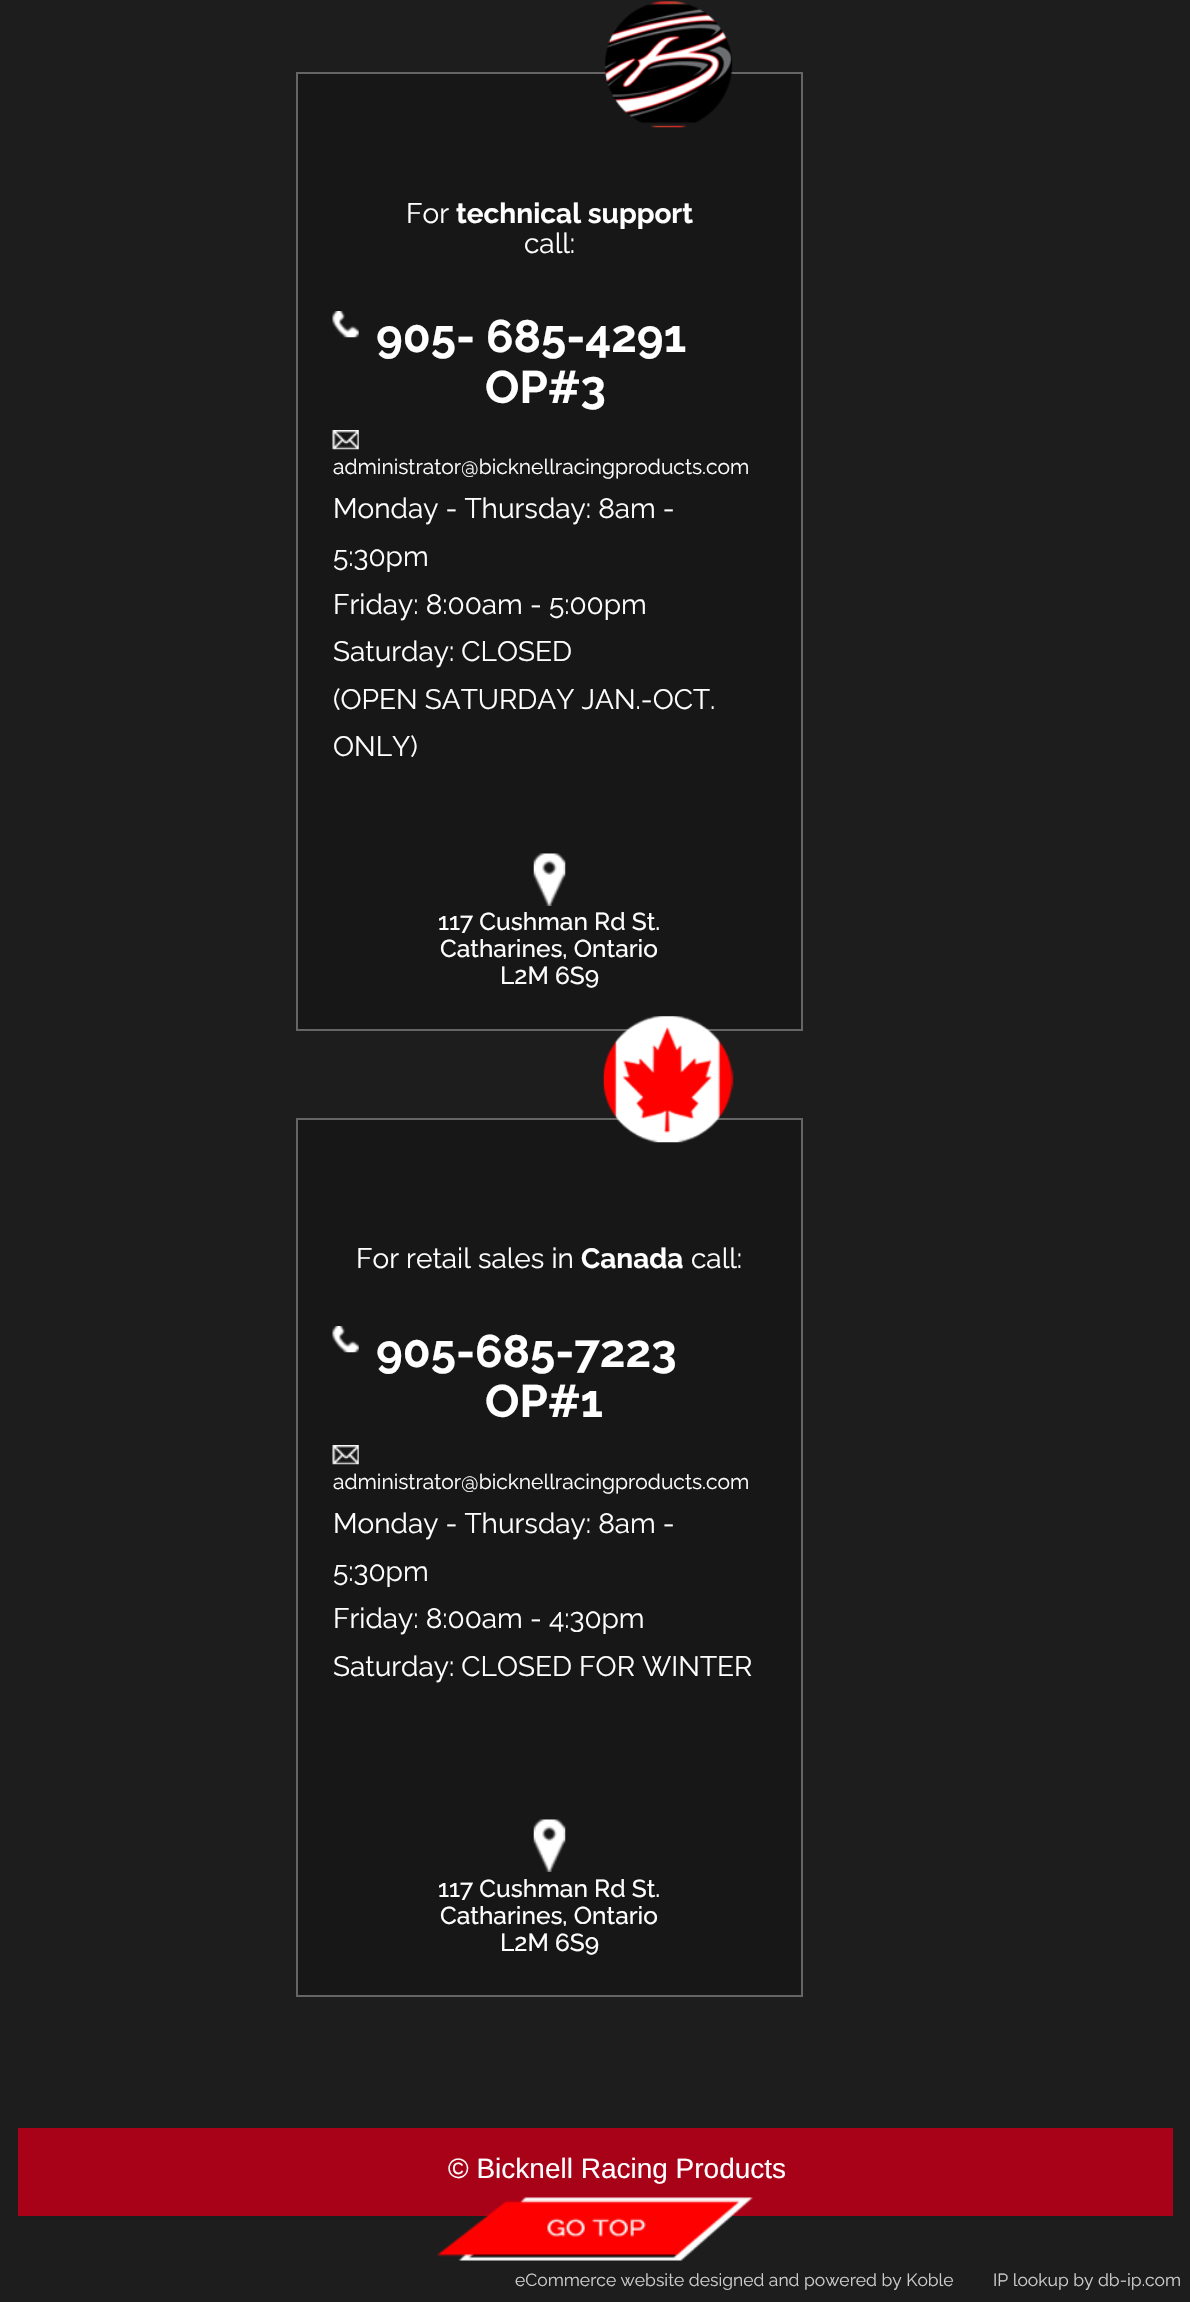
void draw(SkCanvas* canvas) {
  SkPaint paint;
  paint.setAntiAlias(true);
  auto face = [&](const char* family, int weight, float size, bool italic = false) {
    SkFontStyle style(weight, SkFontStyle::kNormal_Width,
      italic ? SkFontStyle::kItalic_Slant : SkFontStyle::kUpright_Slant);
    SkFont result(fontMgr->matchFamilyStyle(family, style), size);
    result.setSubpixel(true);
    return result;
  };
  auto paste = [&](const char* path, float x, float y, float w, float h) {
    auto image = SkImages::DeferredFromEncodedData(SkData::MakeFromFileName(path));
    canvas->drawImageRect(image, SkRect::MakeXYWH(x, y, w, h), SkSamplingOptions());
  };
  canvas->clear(0xff1d1d1d);
  paint.setColor(0xff171717);
  canvas->drawRect(SkRect::MakeXYWH(297, 73, 505, 957), paint);
  paint.setStroke(true);
  paint.setStrokeWidth(2);
  paint.setColor(0xff656565);
  canvas->drawRect(SkRect::MakeXYWH(297, 73, 505, 957), paint);
  paste("img/1.png", 604, 1, 129, 127);
  paste("img/2.png", 332, 311, 27, 27);
  paste("img/3.png", 332, 430, 27, 20);
  paste("img/4.png", 533, 853, 33, 53);
  paint.setStroke(false);
  paint.setColor(0xff171717);
  canvas->drawRect(SkRect::MakeXYWH(297, 1119, 505, 877), paint);
  paint.setStroke(true);
  paint.setColor(0xff656565);
  canvas->drawRect(SkRect::MakeXYWH(297, 1119, 505, 877), paint);
  paste("img/5.png", 603, 1016, 131, 127);
  paste("img/2.png", 332, 1326, 27, 27);
  paste("img/3.png", 332, 1445, 27, 20);
  paste("img/4.png", 533, 1819, 33, 53);
  paint.setStroke(false);
  paint.setColor(0xffa80218);
  canvas->drawRect(SkRect::MakeXYWH(18, 2128, 1155, 88), paint);
  paste("img/6.png", 437, 2197, 316, 64);
  auto f0 = face("Raleway", 400, 28);
  paint.setColor(0xffffffff);
  canvas->drawString("For", 406, 223, f0, paint);
  auto f1 = face("Raleway", 700, 28);
  canvas->drawString("technical support", 456, 223, f1, paint);
  canvas->drawString("call:", 524, 253, f0, paint);
  auto f2 = face("Raleway", 700, 45.5f);
  canvas->drawString("905- 685-4291", 376, 352, f2, paint);
  canvas->drawString("OP#3", 485, 403, f2, paint);
  auto f3 = face("Raleway", 400, 21);
  canvas->drawString("administrator@bicknellracingproducts.com", 333, 474, f3, paint);
  {
    const struct { const char* s; float x, y; } items[] = {
      {"Monday - Thursday: 8am -", 333, 518},
      {"5:30pm", 333, 566},
      {"Friday: 8:00am - 5:00pm", 333, 614},
      {"Saturday: CLOSED", 333, 661},
      {"(OPEN SATURDAY JAN.-OCT.", 333, 709},
      {"ONLY)", 333, 756},
    };
    for (auto [s, x, y] : items) {
      canvas->drawString(s, x, y, f0, paint);
    }
  }
  auto f4 = face("Raleway", 500, 24.5f);
  {
    const struct { const char* s; float x, y; } items[] = {
      {"117 Cushman Rd St.", 438, 930},
      {"Catharines, Ontario", 440, 957},
      {"L2M 6S9", 500, 984},
    };
    for (auto [s, x, y] : items) {
      canvas->drawString(s, x, y, f4, paint);
    }
  }
  canvas->drawString("For retail sales in", 356, 1268, f0, paint);
  canvas->drawString("Canada", 581, 1268, f1, paint);
  canvas->drawString("call:", 691, 1268, f0, paint);
  canvas->drawString("905-685-7223", 376, 1367, f2, paint);
  canvas->drawString("OP#1", 485, 1417, f2, paint);
  canvas->drawString("administrator@bicknellracingproducts.com", 333, 1489, f3, paint);
  {
    const struct { const char* s; float x, y; } items[] = {
      {"Monday - Thursday: 8am -", 333, 1533},
      {"5:30pm", 333, 1581},
      {"Friday: 8:00am - 4:30pm", 333, 1628},
      {"Saturday: CLOSED FOR WINTER", 333, 1676},
    };
    for (auto [s, x, y] : items) {
      canvas->drawString(s, x, y, f0, paint);
    }
  }
  {
    const struct { const char* s; float x, y; } items[] = {
      {"117 Cushman Rd St.", 438, 1897},
      {"Catharines, Ontario", 440, 1924},
      {"L2M 6S9", 500, 1951},
    };
    for (auto [s, x, y] : items) {
      canvas->drawString(s, x, y, f4, paint);
    }
  }
  auto f5 = face("Liberation Sans", 400, 28);
  canvas->drawString("© Bicknell Racing Products", 448, 2178, f5, paint);
  auto f6 = face("Raleway", 400, 17.5f);
  paint.setColor(0xffcccccc);
  canvas->drawString("eCommerce website designed and powered by Koble", 515, 2286, f6, paint);
  canvas->drawString("IP lookup by db-ip.com", 993, 2286, f6, paint);
}
